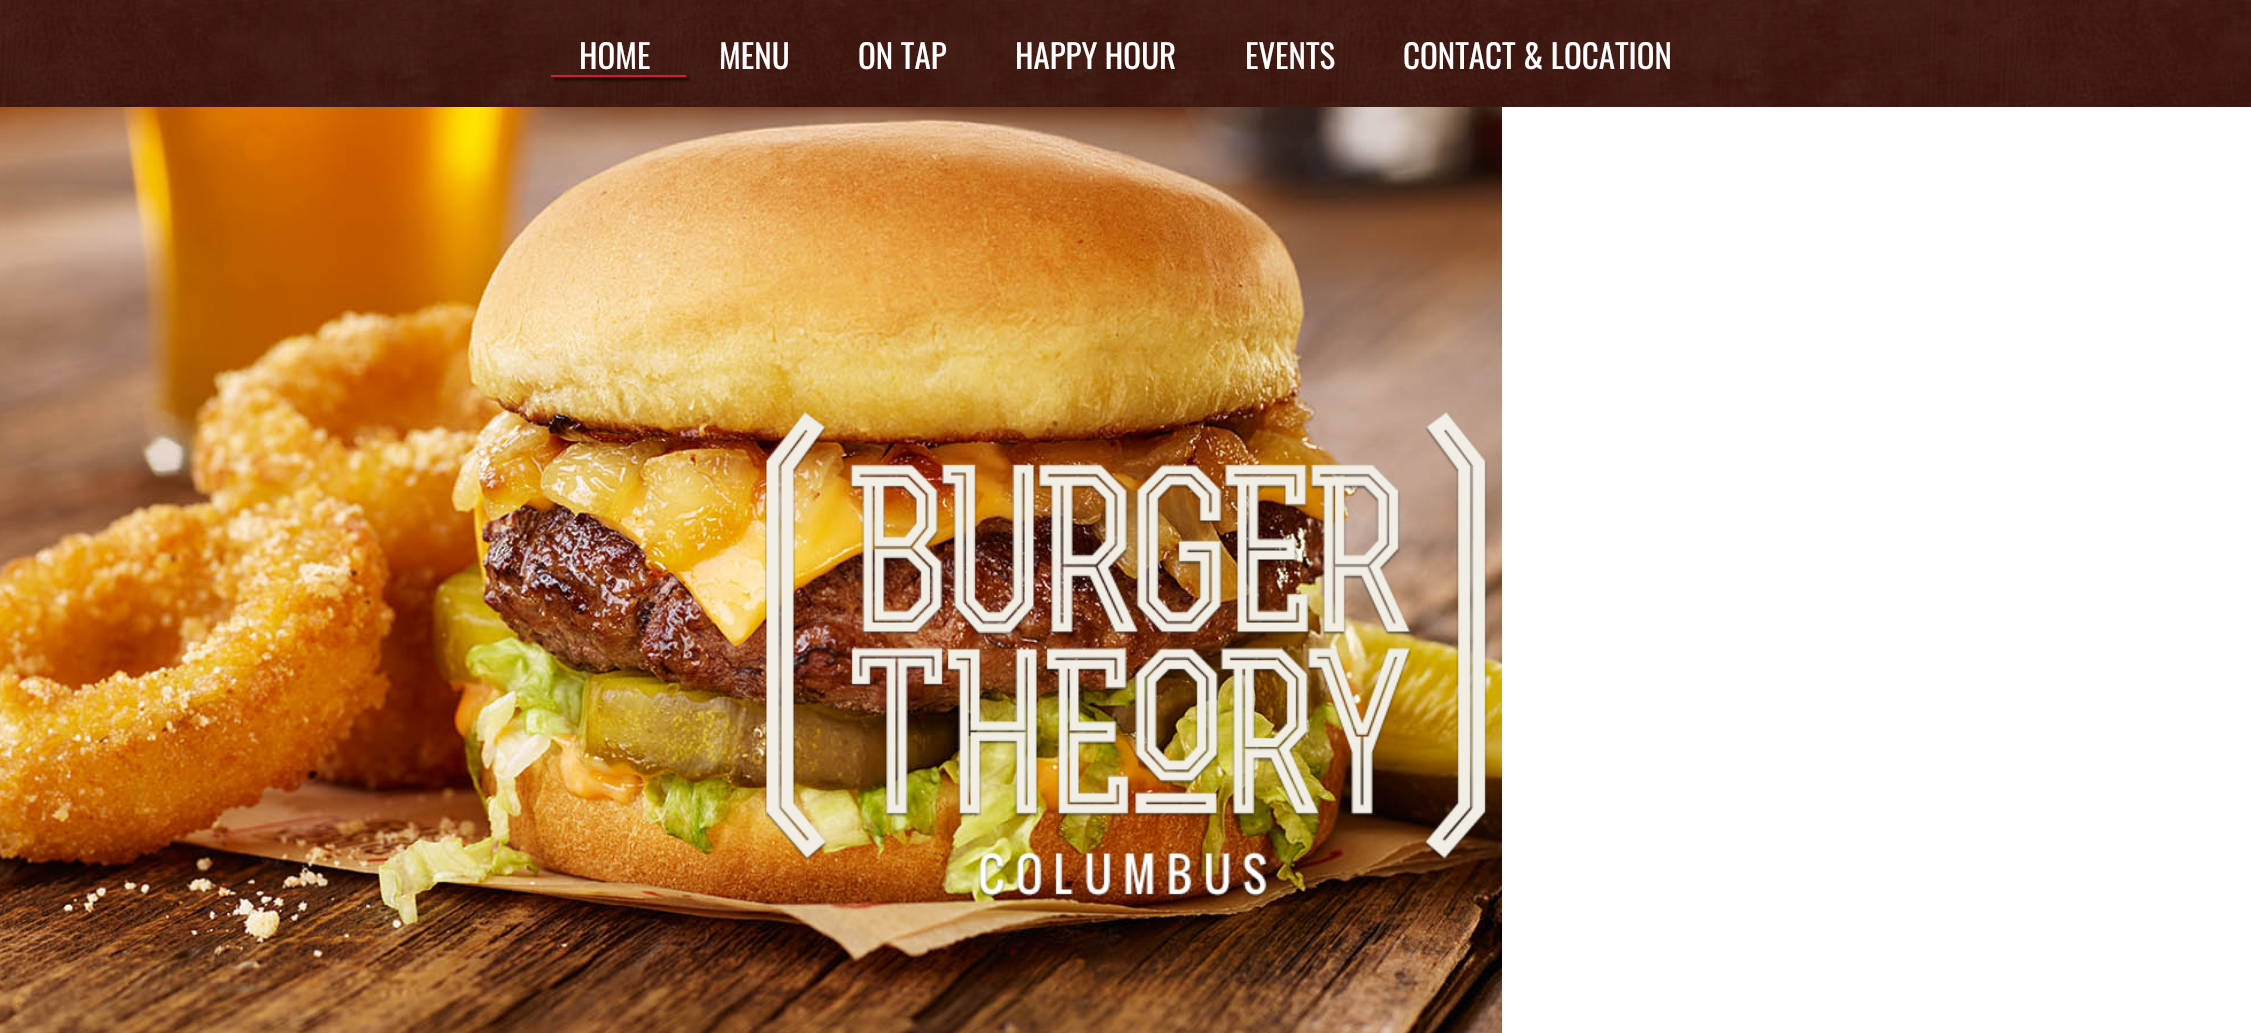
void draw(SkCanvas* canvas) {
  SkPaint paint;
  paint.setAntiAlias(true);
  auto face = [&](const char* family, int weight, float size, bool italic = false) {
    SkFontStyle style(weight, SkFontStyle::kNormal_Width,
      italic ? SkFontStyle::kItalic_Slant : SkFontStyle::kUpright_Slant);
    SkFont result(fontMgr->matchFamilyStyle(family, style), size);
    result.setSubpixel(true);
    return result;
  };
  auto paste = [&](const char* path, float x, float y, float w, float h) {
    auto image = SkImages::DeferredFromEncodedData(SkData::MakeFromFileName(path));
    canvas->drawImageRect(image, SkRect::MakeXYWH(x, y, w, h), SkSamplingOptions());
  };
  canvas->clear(0xffffffff);
  paste("img/1.png", 0, 0, 2251, 107);
  paint.setColor(0xff000000);
  paint.setMaskFilter(SkMaskFilter::MakeBlur(kNormal_SkBlurStyle, 1.5f));
  canvas->drawRect(SkRect::MakeXYWH(554, 78, 135, 2), paint);
  paint.setMaskFilter(nullptr);
  paint.setColor(0xffd2202f);
  canvas->drawRect(SkRect::MakeXYWH(551, 75, 135, 2), paint);
  paste("img/2.png", 0, 107, 1502, 926);
  paste("img/3.png", 765, 412, 722, 487);
  auto f0 = face("Oswald", 400, 33);
  paint.setColor(0xffffffff);
  {
    const struct { const char* s; float x, y; } items[] = {
      {"HOME", 579, 69},
      {"MENU", 719, 69},
      {"ON TAP", 858, 69},
      {"HAPPY HOUR", 1015, 69},
      {"EVENTS", 1245, 69},
      {"CONTACT & LOCATION", 1403, 69},
    };
    for (auto [s, x, y] : items) {
      canvas->drawString(s, x, y, f0, paint);
    }
  }
}
